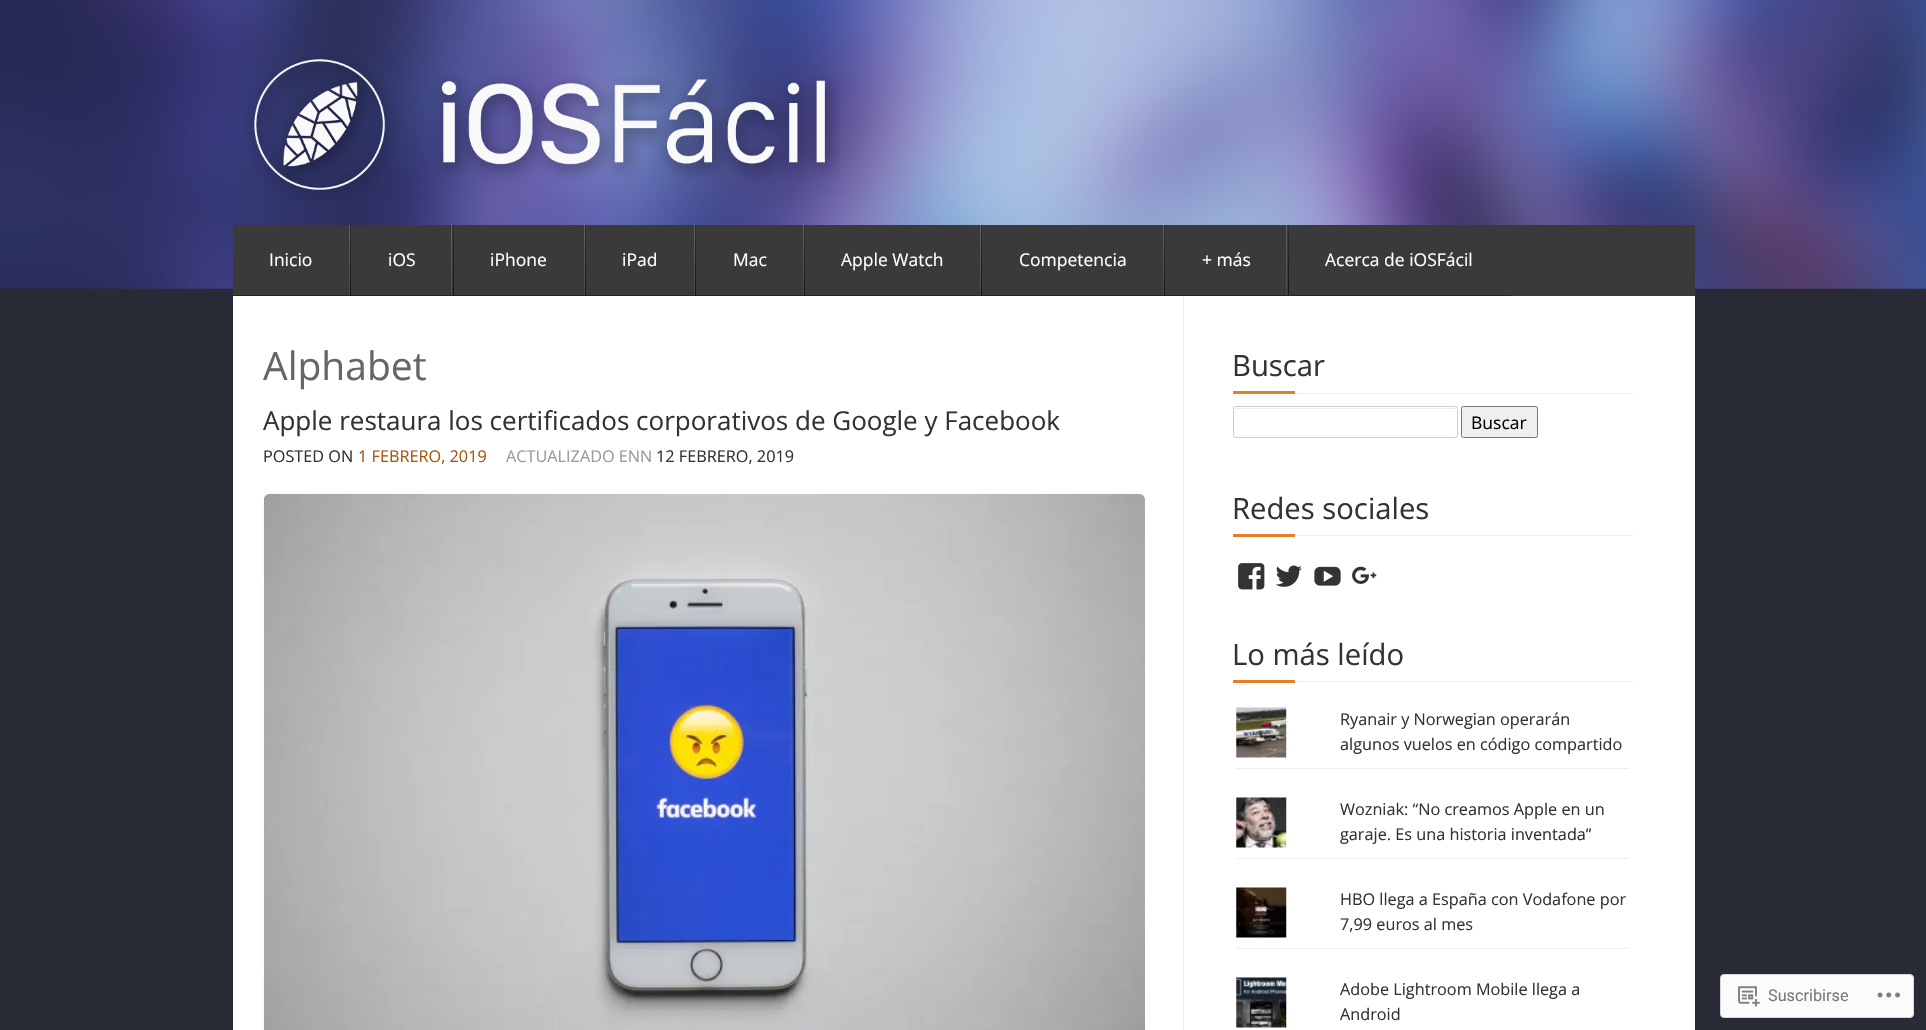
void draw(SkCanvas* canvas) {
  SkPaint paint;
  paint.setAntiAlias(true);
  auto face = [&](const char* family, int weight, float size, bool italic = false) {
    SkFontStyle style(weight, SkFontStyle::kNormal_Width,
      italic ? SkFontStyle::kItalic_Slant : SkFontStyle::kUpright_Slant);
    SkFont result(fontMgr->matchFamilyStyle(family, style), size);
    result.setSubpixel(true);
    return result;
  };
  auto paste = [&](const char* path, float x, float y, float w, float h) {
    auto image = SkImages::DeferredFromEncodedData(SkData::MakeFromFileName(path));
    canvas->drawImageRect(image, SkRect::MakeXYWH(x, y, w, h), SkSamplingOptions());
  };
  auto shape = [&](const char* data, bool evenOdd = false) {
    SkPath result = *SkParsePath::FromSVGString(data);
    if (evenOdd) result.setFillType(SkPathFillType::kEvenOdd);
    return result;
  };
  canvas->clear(0xff282a36);
  paste("img/1.png", 0, 0, 1926, 289);
  paste("img/2.png", 246, 55, 594, 146);
  {
    const struct { float x, y, w, h; SkColor color; } items[] = {
      {233, 296, 1462, 734, 0xffffffff},
      {1183, 289, 1, 741, 0xffeeeeee},
      {233, 225, 1462, 71, 0xff3b3a3a},
      {233, 295, 1278, 1, 0xff252525},
    };
    for (auto [x, y, w, h, color] : items) {
      paint.setColor(color);
      canvas->drawRect(SkRect::MakeXYWH(x, y, w, h), paint);
    }
  }
  {
    const SkColor colors[] = {0xff636363, 0xff494949};
    const float stops[] = {0, 1};
    const SkPoint ends[] = {{349, 225}, {349, 295}};
    paint.setShader(SkGradientShader::MakeLinear(ends, colors, stops, 2, SkTileMode::kClamp));
    paint.setAlpha(255);
  }
  canvas->drawRect(SkRect::MakeXYWH(349, 225, 1, 70), paint);
  {
    const SkColor colors[] = {0xff2f2f2f, 0xff151515};
    const float stops[] = {0, 1};
    const SkPoint ends[] = {{351, 225}, {351, 295}};
    paint.setShader(SkGradientShader::MakeLinear(ends, colors, stops, 2, SkTileMode::kClamp));
    paint.setAlpha(255);
  }
  canvas->drawRect(SkRect::MakeXYWH(350, 225, 1, 70), paint);
  {
    const SkColor colors[] = {0xff636363, 0xff494949};
    const float stops[] = {0, 1};
    const SkPoint ends[] = {{452, 225}, {452, 295}};
    paint.setShader(SkGradientShader::MakeLinear(ends, colors, stops, 2, SkTileMode::kClamp));
    paint.setAlpha(255);
  }
  canvas->drawRect(SkRect::MakeXYWH(451, 225, 1, 70), paint);
  {
    const SkColor colors[] = {0xff2f2f2f, 0xff151515};
    const float stops[] = {0, 1};
    const SkPoint ends[] = {{453, 225}, {453, 295}};
    paint.setShader(SkGradientShader::MakeLinear(ends, colors, stops, 2, SkTileMode::kClamp));
    paint.setAlpha(255);
  }
  canvas->drawRect(SkRect::MakeXYWH(453, 225, 1, 70), paint);
  {
    const SkColor colors[] = {0xff636363, 0xff494949};
    const float stops[] = {0, 1};
    const SkPoint ends[] = {{584, 225}, {584, 295}};
    paint.setShader(SkGradientShader::MakeLinear(ends, colors, stops, 2, SkTileMode::kClamp));
    paint.setAlpha(255);
  }
  canvas->drawRect(SkRect::MakeXYWH(584, 225, 1, 70), paint);
  {
    const SkColor colors[] = {0xff2f2f2f, 0xff151515};
    const float stops[] = {0, 1};
    const SkPoint ends[] = {{586, 225}, {586, 295}};
    paint.setShader(SkGradientShader::MakeLinear(ends, colors, stops, 2, SkTileMode::kClamp));
    paint.setAlpha(255);
  }
  canvas->drawRect(SkRect::MakeXYWH(585, 225, 1, 70), paint);
  {
    const SkColor colors[] = {0xff636363, 0xff494949};
    const float stops[] = {0, 1};
    const SkPoint ends[] = {{694, 225}, {694, 295}};
    paint.setShader(SkGradientShader::MakeLinear(ends, colors, stops, 2, SkTileMode::kClamp));
    paint.setAlpha(255);
  }
  canvas->drawRect(SkRect::MakeXYWH(694, 225, 1, 70), paint);
  {
    const SkColor colors[] = {0xff2f2f2f, 0xff151515};
    const float stops[] = {0, 1};
    const SkPoint ends[] = {{696, 225}, {696, 295}};
    paint.setShader(SkGradientShader::MakeLinear(ends, colors, stops, 2, SkTileMode::kClamp));
    paint.setAlpha(255);
  }
  canvas->drawRect(SkRect::MakeXYWH(695, 225, 1, 70), paint);
  {
    const SkColor colors[] = {0xff636363, 0xff494949};
    const float stops[] = {0, 1};
    const SkPoint ends[] = {{803, 225}, {803, 295}};
    paint.setShader(SkGradientShader::MakeLinear(ends, colors, stops, 2, SkTileMode::kClamp));
    paint.setAlpha(255);
  }
  canvas->drawRect(SkRect::MakeXYWH(803, 225, 1, 70), paint);
  {
    const SkColor colors[] = {0xff2f2f2f, 0xff151515};
    const float stops[] = {0, 1};
    const SkPoint ends[] = {{804, 225}, {804, 295}};
    paint.setShader(SkGradientShader::MakeLinear(ends, colors, stops, 2, SkTileMode::kClamp));
    paint.setAlpha(255);
  }
  canvas->drawRect(SkRect::MakeXYWH(804, 225, 1, 70), paint);
  {
    const SkColor colors[] = {0xff636363, 0xff494949};
    const float stops[] = {0, 1};
    const SkPoint ends[] = {{981, 225}, {981, 295}};
    paint.setShader(SkGradientShader::MakeLinear(ends, colors, stops, 2, SkTileMode::kClamp));
    paint.setAlpha(255);
  }
  canvas->drawRect(SkRect::MakeXYWH(980, 225, 1, 70), paint);
  {
    const SkColor colors[] = {0xff2f2f2f, 0xff151515};
    const float stops[] = {0, 1};
    const SkPoint ends[] = {{982, 225}, {982, 295}};
    paint.setShader(SkGradientShader::MakeLinear(ends, colors, stops, 2, SkTileMode::kClamp));
    paint.setAlpha(255);
  }
  canvas->drawRect(SkRect::MakeXYWH(981, 225, 1, 70), paint);
  {
    const SkColor colors[] = {0xff636363, 0xff494949};
    const float stops[] = {0, 1};
    const SkPoint ends[] = {{1163, 225}, {1163, 295}};
    paint.setShader(SkGradientShader::MakeLinear(ends, colors, stops, 2, SkTileMode::kClamp));
    paint.setAlpha(255);
  }
  canvas->drawRect(SkRect::MakeXYWH(1163, 225, 1, 70), paint);
  {
    const SkColor colors[] = {0xff2f2f2f, 0xff151515};
    const float stops[] = {0, 1};
    const SkPoint ends[] = {{1164, 225}, {1164, 295}};
    paint.setShader(SkGradientShader::MakeLinear(ends, colors, stops, 2, SkTileMode::kClamp));
    paint.setAlpha(255);
  }
  canvas->drawRect(SkRect::MakeXYWH(1164, 225, 1, 70), paint);
  {
    const SkColor colors[] = {0xff636363, 0xff494949};
    const float stops[] = {0, 1};
    const SkPoint ends[] = {{1287, 225}, {1287, 295}};
    paint.setShader(SkGradientShader::MakeLinear(ends, colors, stops, 2, SkTileMode::kClamp));
    paint.setAlpha(255);
  }
  canvas->drawRect(SkRect::MakeXYWH(1286, 225, 1, 70), paint);
  {
    const SkColor colors[] = {0xff2f2f2f, 0xff151515};
    const float stops[] = {0, 1};
    const SkPoint ends[] = {{1288, 225}, {1288, 295}};
    paint.setShader(SkGradientShader::MakeLinear(ends, colors, stops, 2, SkTileMode::kClamp));
    paint.setAlpha(255);
  }
  canvas->drawRect(SkRect::MakeXYWH(1288, 225, 1, 70), paint);
  paste("img/3.png", 263, 493, 882, 537);
  paint.setShader(nullptr);
  paint.setColor(0xffeeeeee);
  canvas->drawRect(SkRect::MakeXYWH(1295, 393, 338, 1), paint);
  paint.setColor(0xffe77e23);
  canvas->drawRect(SkRect::MakeXYWH(1233, 391, 62, 3), paint);
  paint.setColor(0xffececec);
  canvas->drawPath(shape("M1235 409H1456V410C1456 409 1456 408 1455 408H1234V410C1234 409 1234 409 1235 409Z"), paint);
  paint.setStroke(true);
  paint.setStrokeWidth(1);
  paint.setColor(0xffcccccc);
  canvas->drawRoundRect(SkRect::MakeXYWH(1233.5f, 406.5f, 224, 31), 2, 2, paint);
  paint.setStroke(false);
  paint.setColor(0xffefefef);
  canvas->drawRoundRect(SkRect::MakeXYWH(1461.5f, 406.5f, 76, 31), 2, 2, paint);
  paint.setStroke(true);
  paint.setColor(0xff767676);
  canvas->drawRoundRect(SkRect::MakeXYWH(1461.5f, 406.5f, 76, 31), 2, 2, paint);
  paint.setStroke(false);
  paint.setColor(0xffeeeeee);
  canvas->drawRect(SkRect::MakeXYWH(1295, 535, 338, 1), paint);
  paint.setColor(0xffe77e23);
  canvas->drawRect(SkRect::MakeXYWH(1233, 534, 62, 3), paint);
  paste("img/4.png", 1238, 563, 27, 27);
  paste("img/5.png", 1275, 565, 27, 22);
  paste("img/6.png", 1314, 566, 27, 20);
  paste("img/7.png", 1352, 566, 25, 18);
  {
    const struct { float x, y, w, h; SkColor color; } items[] = {
      {1295, 681, 338, 1, 0xffeeeeee},
      {1233, 680, 62, 3, 0xffe77e23},
      {1236, 768, 393, 1, 0xffeeeeee},
    };
    for (auto [x, y, w, h, color] : items) {
      paint.setColor(color);
      canvas->drawRect(SkRect::MakeXYWH(x, y, w, h), paint);
    }
  }
  paste("img/8.png", 1236, 707, 51, 51);
  canvas->drawRect(SkRect::MakeXYWH(1236, 858, 393, 1), paint);
  paste("img/9.png", 1236, 797, 51, 51);
  canvas->drawRect(SkRect::MakeXYWH(1236, 948, 393, 1), paint);
  paste("img/10.png", 1236, 887, 51, 51);
  paste("img/11.png", 1236, 977, 51, 51);
  paint.setColor(0xfffbfbfb);
  canvas->drawRoundRect(SkRect::MakeXYWH(1720.5f, 974.5f, 193, 43), 3.5f, 3.5f, paint);
  paint.setStroke(true);
  paint.setColor(0xffd8d8db);
  canvas->drawRoundRect(SkRect::MakeXYWH(1720.5f, 974.5f, 193, 43), 3.5f, 3.5f, paint);
  paste("img/12.png", 1738, 986, 22, 21);
  paste("img/13.png", 1877, 992, 23, 6);
  auto f0 = face("Open Sans", 400, 17.5f);
  paint.setStroke(false);
  paint.setColor(0xffffffff);
  {
    const struct { const char* s; float x, y; } items[] = {
      {"Inicio", 269, 266},
      {"iOS", 388, 266},
      {"iPhone", 490, 266},
      {"iPad", 622, 266},
      {"Mac", 733, 266},
      {"Apple Watch", 841, 266},
      {"Competencia", 1019, 266},
      {"+ más", 1202, 266},
      {"Acerca de iOSFácil", 1325, 266},
    };
    for (auto [s, x, y] : items) {
      canvas->drawString(s, x, y, f0, paint);
    }
  }
  auto f1 = face("Open Sans", 400, 39);
  paint.setColor(0xff666666);
  canvas->drawString("Alphabet", 263, 380, f1, paint);
  auto f2 = face("Open Sans", 400, 26);
  paint.setColor(0xff333333);
  canvas->drawString("Apple restaura los certificados corporativos de Google y Facebook", 263, 430, f2, paint);
  auto f3 = face("Open Sans", 400, 16.25f);
  canvas->drawString("POSTED ON", 263, 462, f3, paint);
  paint.setColor(0xffa9560d);
  canvas->drawString("1 FEBRERO, 2019", 358, 462, f3, paint);
  paint.setColor(0xff999999);
  canvas->drawString("ACTUALIZADO ENN", 506, 462, f3, paint);
  paint.setColor(0xff333333);
  canvas->drawString("12 FEBRERO, 2019", 656, 462, f3, paint);
  auto f4 = face("Open Sans", 400, 29.25f);
  canvas->drawString("Buscar", 1232, 376, f4, paint);
  paint.setColor(0xff000000);
  canvas->drawString("Buscar", 1471, 429, f0, paint);
  paint.setColor(0xff333333);
  canvas->drawString("Redes sociales", 1232, 519, f4, paint);
  canvas->drawString("Lo más leído", 1232, 665, f4, paint);
  {
    const struct { const char* s; float x, y; } items[] = {
      {"Ryanair y Norwegian operarán", 1340, 725},
      {"algunos vuelos en código compartido", 1340, 750},
      {"Wozniak: “No creamos Apple en un", 1340, 815},
      {"garaje. Es una historia inventada”", 1340, 840},
      {"HBO llega a España con Vodafone por", 1340, 905},
      {"7,99 euros al mes", 1340, 930},
      {"Adobe Lightroom Mobile llega a", 1340, 995},
      {"Android", 1340, 1020},
    };
    for (auto [s, x, y] : items) {
      canvas->drawString(s, x, y, f3, paint);
    }
  }
  auto f5 = face("Roboto", 400, 16.25f);
  paint.setColor(0xff767a80);
  canvas->drawString("Suscribirse", 1768, 1001, f5, paint);
}
